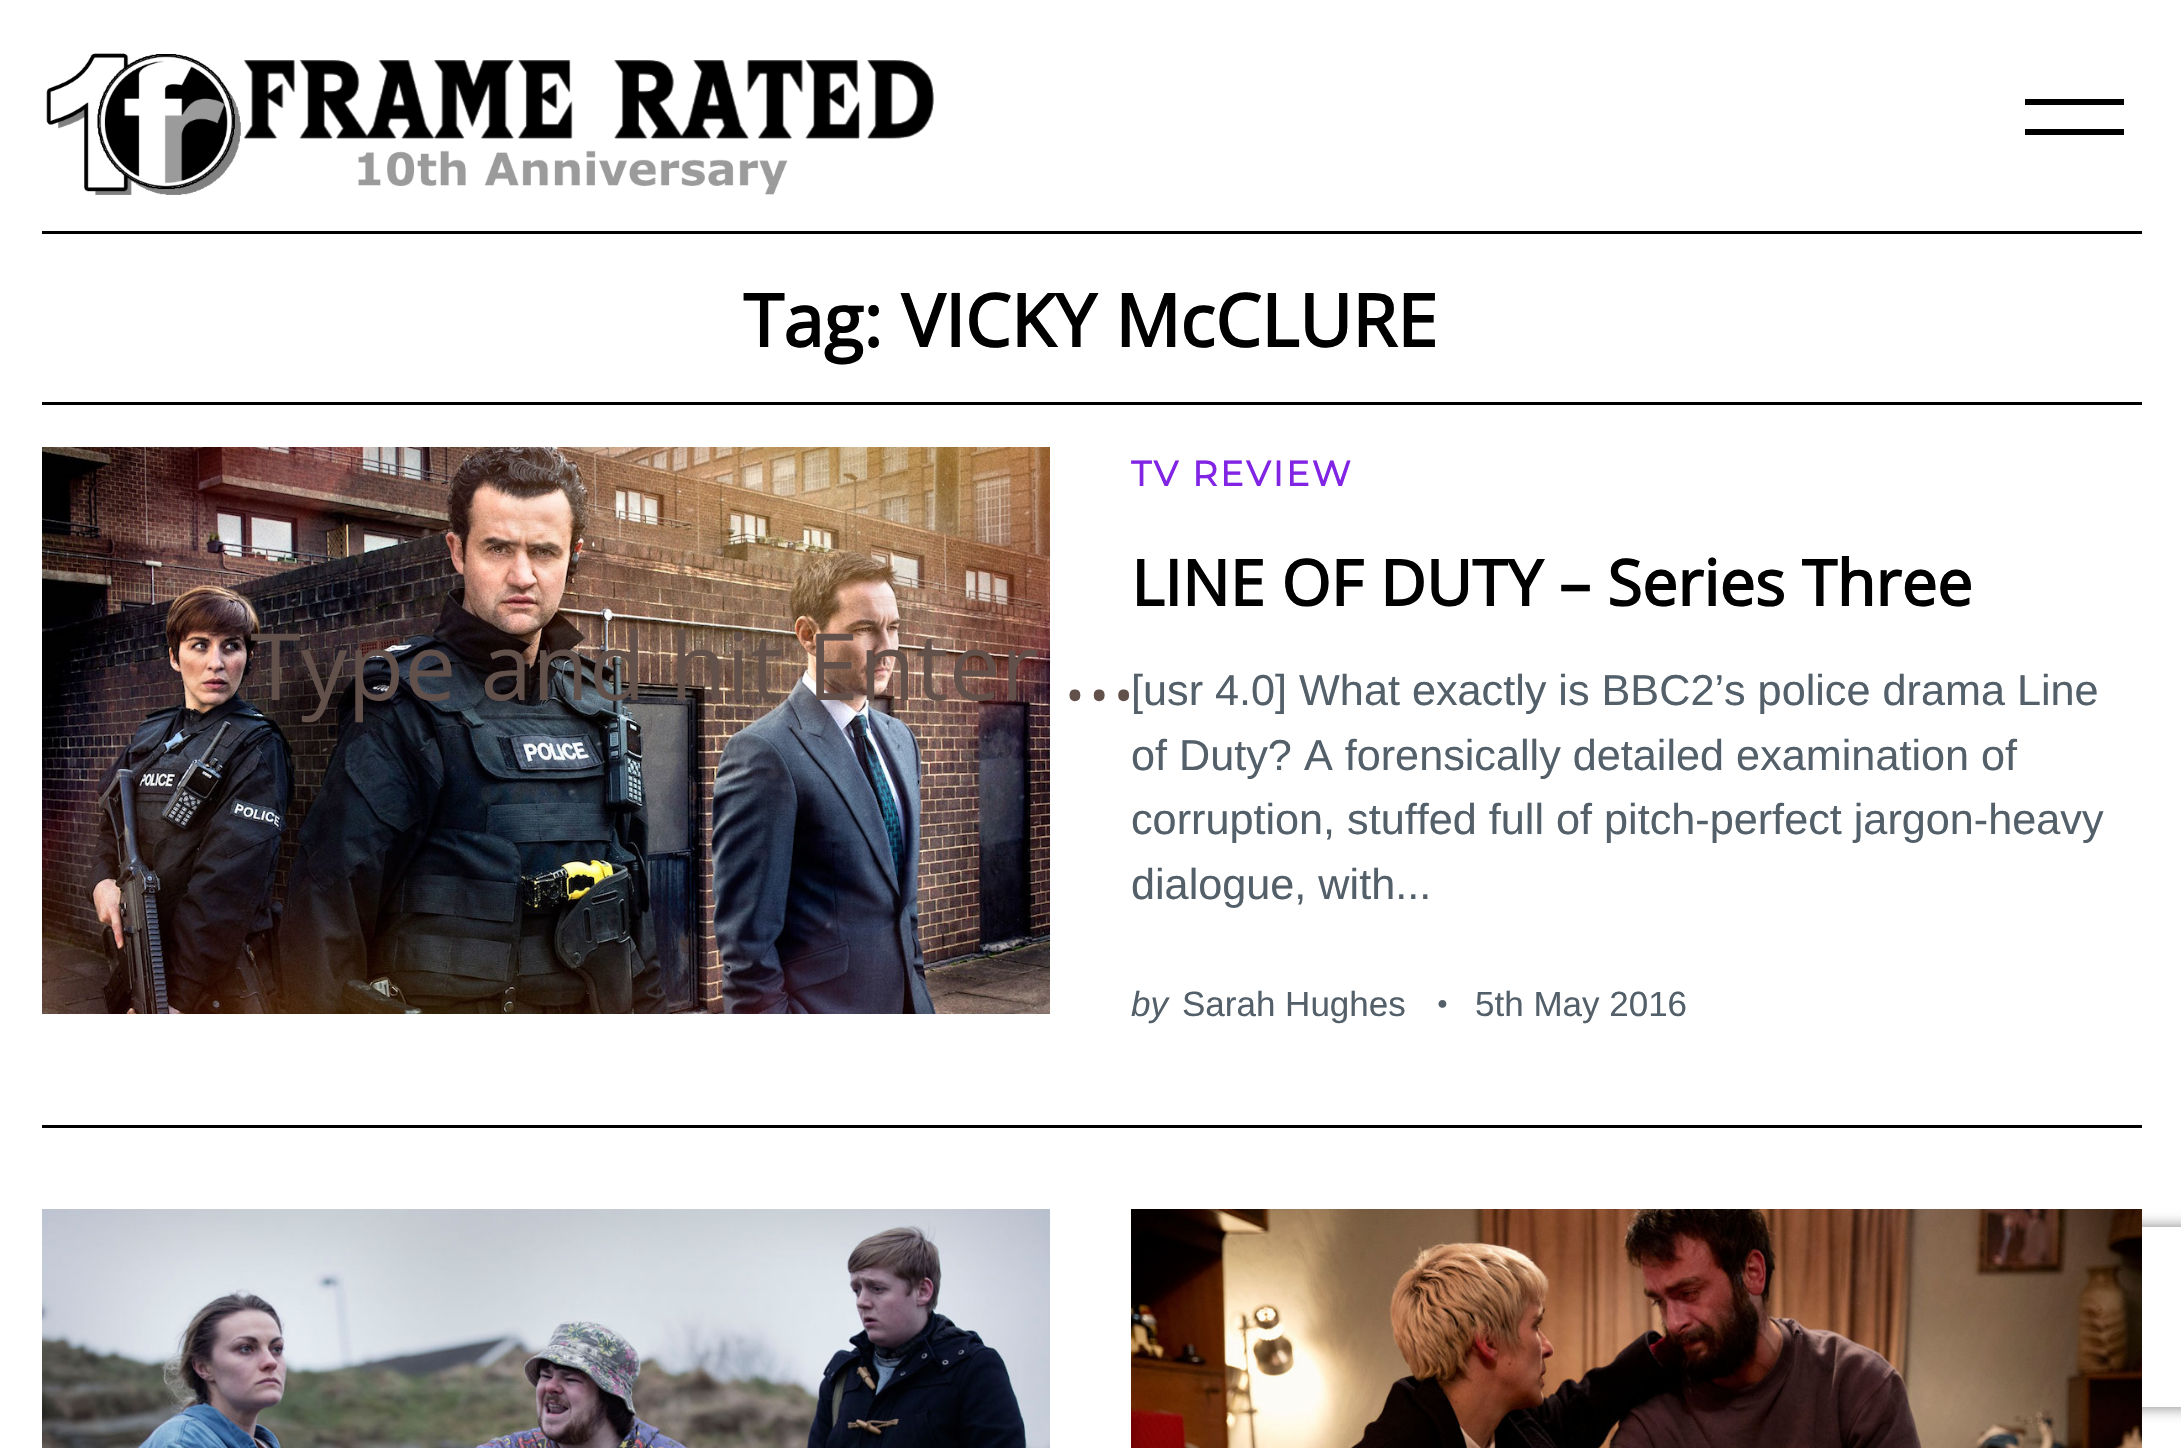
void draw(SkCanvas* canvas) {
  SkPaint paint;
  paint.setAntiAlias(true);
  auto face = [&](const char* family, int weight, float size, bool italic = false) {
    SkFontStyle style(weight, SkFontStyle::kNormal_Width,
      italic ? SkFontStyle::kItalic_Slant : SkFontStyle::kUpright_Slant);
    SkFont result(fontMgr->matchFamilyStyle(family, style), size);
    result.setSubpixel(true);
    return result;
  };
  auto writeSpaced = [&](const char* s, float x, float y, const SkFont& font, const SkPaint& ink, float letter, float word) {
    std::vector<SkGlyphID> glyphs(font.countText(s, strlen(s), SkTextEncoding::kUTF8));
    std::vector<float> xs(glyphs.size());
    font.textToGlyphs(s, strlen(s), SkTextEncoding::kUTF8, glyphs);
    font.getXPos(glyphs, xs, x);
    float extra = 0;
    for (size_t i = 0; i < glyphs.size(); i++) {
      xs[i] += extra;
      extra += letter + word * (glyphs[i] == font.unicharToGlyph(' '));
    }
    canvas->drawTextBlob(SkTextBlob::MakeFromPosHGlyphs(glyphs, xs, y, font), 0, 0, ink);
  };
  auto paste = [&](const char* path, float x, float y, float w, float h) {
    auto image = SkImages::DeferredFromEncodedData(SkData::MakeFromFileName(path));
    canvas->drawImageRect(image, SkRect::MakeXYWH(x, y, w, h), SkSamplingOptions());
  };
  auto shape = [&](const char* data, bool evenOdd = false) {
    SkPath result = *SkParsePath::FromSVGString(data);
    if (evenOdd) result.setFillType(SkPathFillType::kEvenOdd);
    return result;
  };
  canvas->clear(0xffffffff);
  paste("img/1.png", 46, 53, 888, 142);
  {
    const struct { float x, y, w, h; SkColor color; } items[] = {
      {2025, 99, 99, 6, 0xff000000},
      {2025, 129, 99, 6, 0xff000000},
      {42, 231, 2100, 3, 0xff000000},
      {42, 402, 2100, 3, 0xff000000},
    };
    for (auto [x, y, w, h, color] : items) {
      paint.setColor(color);
      canvas->drawRect(SkRect::MakeXYWH(x, y, w, h), paint);
    }
  }
  paste("img/2.png", 42, 447, 1008, 567);
  canvas->drawRect(SkRect::MakeXYWH(42, 1125, 2100, 3), paint);
  paste("img/3.png", 42, 1209, 1008, 239);
  canvas->save();
  canvas->clipPath(shape("M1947 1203H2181V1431H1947ZM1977 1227H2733C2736.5 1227 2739 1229.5 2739 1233V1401C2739 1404.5 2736.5 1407 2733 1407H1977C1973.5 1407 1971 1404.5 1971 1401V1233C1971 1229.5 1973.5 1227 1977 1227Z", true), true);
  paint.setColor(0xff808080);
  paint.setMaskFilter(SkMaskFilter::MakeBlur(kNormal_SkBlurStyle, 7.5f));
  canvas->drawRoundRect(SkRect::MakeXYWH(1971, 1227, 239, 180), 6, 6, paint);
  paint.setMaskFilter(nullptr);
  canvas->restore();
  paste("img/4.png", 1131, 1209, 1011, 239);
  auto f0 = face("Open Sans", 400, 92.75f);
  paint.setColor(0xff62504b);
  canvas->drawString("Type and hit Enter ...", 250, 700, f0, paint);
  auto f1 = face("Open Sans", 700, 72.75f);
  paint.setColor(0xff000000);
  canvas->drawString("Tag: VICKY McCLURE", 743, 347, f1, paint);
  auto f2 = face("Montserrat", 700, 35);
  paint.setColor(0xff8224e3);
  writeSpaced("TV REVIEW", 1131, 486, f2, paint, 2.5f, 0);
  auto f3 = face("Open Sans", 700, 63.4f);
  paint.setColor(0xff000000);
  canvas->drawString("LINE OF DUTY – Series Three", 1131, 606, f3, paint);
  auto f4 = face("Liberation Sans", 400, 43.2f);
  paint.setColor(0xff535f69);
  {
    const struct { const char* s; float x, y; } items[] = {
      {"[usr 4.0] What exactly is BBC2’s police drama Line", 1131, 705},
      {"of Duty? A forensically detailed examination of", 1131, 770},
      {"corruption, stuffed full of pitch-perfect jargon-heavy", 1131, 834},
      {"dialogue, with...", 1131, 899},
    };
    for (auto [s, x, y] : items) {
      canvas->drawString(s, x, y, f4, paint);
    }
  }
  auto f5 = face("Liberation Sans", 400, 35, true);
  canvas->drawString("by", 1131, 1016, f5, paint);
  auto f6 = face("Liberation Sans", 400, 35);
  canvas->drawString("Sarah Hughes", 1182, 1016, f6, paint);
  auto f7 = face("Liberation Sans", 400, 18);
  canvas->drawString("●", 1437, 1009, f7, paint);
  canvas->drawString("5th May 2016", 1475, 1016, f6, paint);
}
